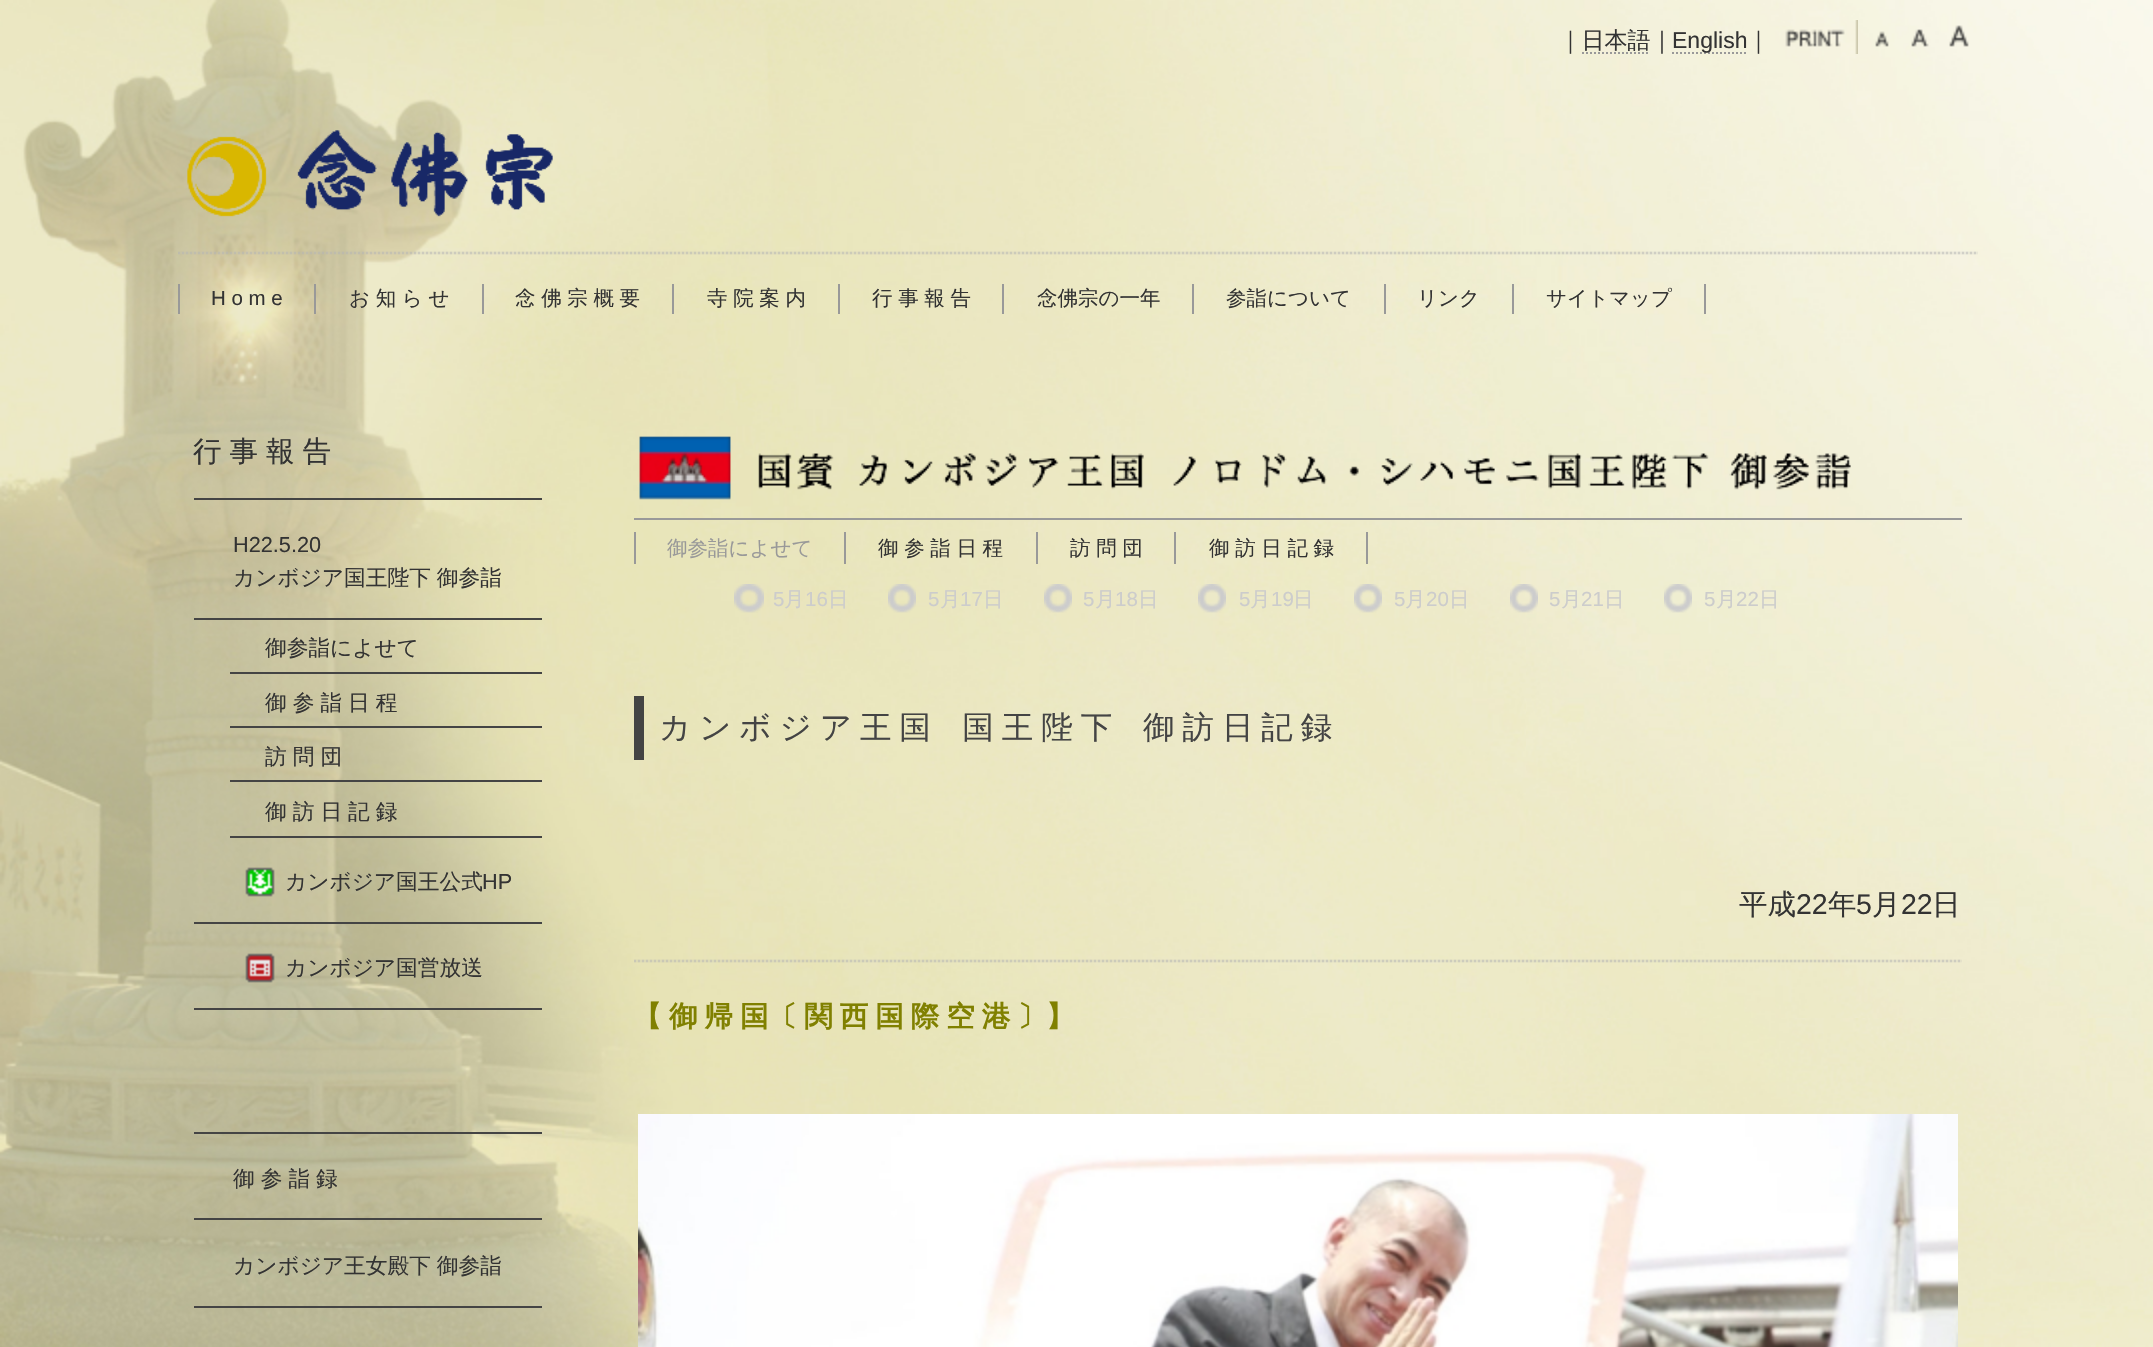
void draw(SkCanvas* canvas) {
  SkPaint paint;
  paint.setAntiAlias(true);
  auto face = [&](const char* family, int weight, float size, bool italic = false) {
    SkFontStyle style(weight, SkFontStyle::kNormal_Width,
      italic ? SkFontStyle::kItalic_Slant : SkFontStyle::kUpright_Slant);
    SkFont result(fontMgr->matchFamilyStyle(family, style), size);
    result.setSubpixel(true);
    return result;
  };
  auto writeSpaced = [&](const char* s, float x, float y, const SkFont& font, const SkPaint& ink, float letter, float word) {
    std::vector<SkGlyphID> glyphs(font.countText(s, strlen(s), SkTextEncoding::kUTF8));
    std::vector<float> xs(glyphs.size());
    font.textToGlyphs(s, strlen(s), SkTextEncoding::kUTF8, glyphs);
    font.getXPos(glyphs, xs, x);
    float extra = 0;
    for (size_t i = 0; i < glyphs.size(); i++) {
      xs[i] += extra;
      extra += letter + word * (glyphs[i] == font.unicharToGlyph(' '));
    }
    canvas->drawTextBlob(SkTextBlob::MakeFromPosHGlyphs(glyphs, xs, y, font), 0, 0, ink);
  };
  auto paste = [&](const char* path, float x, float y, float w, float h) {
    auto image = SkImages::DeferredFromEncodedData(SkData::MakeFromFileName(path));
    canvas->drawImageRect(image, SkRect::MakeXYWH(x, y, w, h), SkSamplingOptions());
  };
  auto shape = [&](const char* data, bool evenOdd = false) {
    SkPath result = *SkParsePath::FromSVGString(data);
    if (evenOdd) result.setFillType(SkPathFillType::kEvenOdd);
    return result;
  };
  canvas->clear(0xffffffff);
  paste("img/1.png", 0, 0, 2153, 1347);
  paint.setStroke(true);
  paint.setStrokeWidth(2);
  paint.setColor(0xff999999);
  paint.setPathEffect(SkDashPathEffect::Make({{2, 2}}, 0));
  canvas->drawPath(shape("M1672 53H1746"), paint);
  paint.setPathEffect(nullptr);
  paste("img/2.png", 1785, 20, 73, 34);
  paste("img/3.png", 1875, 31, 14, 16);
  paste("img/4.png", 1911, 29, 18, 18);
  paste("img/5.png", 1949, 25, 20, 22);
  paste("img/6.png", 187, 130, 366, 87);
  paste("img/7.png", 178, 251, 1800, 4);
  paint.setStroke(false);
  {
    const struct { float x, y, w, h; SkColor color; } items[] = {
      {314, 284, 2, 30, 0xff999999},
      {178, 284, 2, 30, 0xff999999},
      {482, 284, 2, 30, 0xff999999},
      {672, 284, 2, 30, 0xff999999},
      {838, 284, 2, 30, 0xff999999},
      {1002, 284, 2, 30, 0xff999999},
      {1192, 284, 2, 30, 0xff999999},
      {1384, 284, 2, 30, 0xff999999},
      {1512, 284, 2, 30, 0xff999999},
      {1704, 284, 2, 30, 0xff999999},
      {194, 498, 348, 2, 0xff444444},
      {194, 618, 348, 2, 0xff444444},
      {230, 672, 312, 2, 0xff444444},
      {230, 726, 312, 2, 0xff444444},
      {230, 780, 312, 2, 0xff444444},
      {230, 836, 312, 2, 0xff444444},
      {194, 922, 348, 2, 0xff444444},
    };
    for (auto [x, y, w, h, color] : items) {
      paint.setColor(color);
      canvas->drawRect(SkRect::MakeXYWH(x, y, w, h), paint);
    }
  }
  paste("img/8.png", 245, 867, 30, 30);
  canvas->drawRect(SkRect::MakeXYWH(194, 1008, 348, 2), paint);
  paste("img/9.png", 245, 953, 30, 30);
  {
    const struct { float x, y, w, h; SkColor color; } items[] = {
      {194, 1132, 348, 2, 0xff444444},
      {194, 1218, 348, 2, 0xff444444},
      {194, 1306, 348, 2, 0xff444444},
      {634, 518, 1328, 2, 0xff999999},
    };
    for (auto [x, y, w, h, color] : items) {
      paint.setColor(color);
      canvas->drawRect(SkRect::MakeXYWH(x, y, w, h), paint);
    }
  }
  paste("img/10.png", 639, 436, 1212, 64);
  {
    const struct { float x, y, w, h; SkColor color; } items[] = {
      {844, 532, 2, 32, 0xff999999},
      {634, 532, 2, 32, 0xff999999},
      {1036, 532, 2, 32, 0xff999999},
      {1174, 532, 2, 32, 0xff999999},
      {1366, 532, 2, 32, 0xff999999},
    };
    for (auto [x, y, w, h, color] : items) {
      paint.setColor(color);
      canvas->drawRect(SkRect::MakeXYWH(x, y, w, h), paint);
    }
  }
  paste("img/11.png", 734, 584, 30, 29);
  paste("img/12.png", 888, 584, 28, 29);
  paste("img/13.png", 1044, 584, 28, 29);
  paste("img/14.png", 1198, 584, 28, 29);
  paste("img/15.png", 1354, 584, 28, 29);
  paste("img/16.png", 1510, 584, 28, 29);
  paste("img/17.png", 1664, 584, 28, 29);
  paint.setColor(0xff444444);
  canvas->drawRect(SkRect::MakeXYWH(634, 696, 10, 64), paint);
  paste("img/18.png", 634, 959, 1328, 4);
  paste("img/19.png", 638, 1114, 1320, 233);
  auto f0 = face("WenQuanYi Zen Hei", 500, 23);
  paint.setColor(0xff333333);
  canvas->drawString("｜日本語｜", 1559, 48, f0, paint);
  auto f1 = face("Liberation Sans", 400, 23);
  canvas->drawString("English", 1672, 48, f1, paint);
  canvas->drawString("｜", 1747, 48, f0, paint);
  paint.setStroke(true);
  paint.setColor(0xff999999);
  paint.setPathEffect(SkDashPathEffect::Make({{2, 2}}, 0));
  canvas->drawPath(shape("M1582 53H1650"), paint);
  paint.setPathEffect(nullptr);
  auto f2 = face("Liberation Sans", 400, 20.5f);
  paint.setStroke(false);
  paint.setColor(0xff333333);
  canvas->drawString("H o m e", 211, 305, f2, paint);
  auto f3 = face("WenQuanYi Zen Hei", 500, 20.5f);
  {
    const struct { const char* s; float x, y; } items[] = {
      {"お 知 ら せ", 349, 305},
      {"念 佛 宗 概 要", 515, 305},
      {"寺 院 案 内", 707, 305},
      {"行 事 報 告", 872, 305},
    };
    for (auto [s, x, y] : items) {
      writeSpaced(s, x, y, f3, paint, 0, -0.5f);
    }
  }
  {
    const struct { const char* s; float x, y; } items[] = {
      {"念佛宗の一年", 1037, 305},
      {"参詣について", 1226, 305},
      {"リンク", 1417, 305},
      {"サイトマップ", 1546, 305},
    };
    for (auto [s, x, y] : items) {
      canvas->drawString(s, x, y, f3, paint);
    }
  }
  auto f4 = face("WenQuanYi Zen Hei", 500, 28.5f);
  writeSpaced("行 事 報 告", 193, 461, f4, paint, 0, -0.5f);
  auto f5 = face("Liberation Sans", 400, 21.7f);
  canvas->drawString("H22.5.20", 233, 552, f5, paint);
  auto f6 = face("WenQuanYi Zen Hei", 500, 21.7f);
  writeSpaced("カンボジア国王陛下 御参詣", 233, 585, f6, paint, 0, -0.5f);
  canvas->drawString("御参詣によせて", 265, 655, f6, paint);
  {
    const struct { const char* s; float x, y; } items[] = {
      {"御 参 詣 日 程", 265, 710},
      {"訪 問 団", 265, 764},
      {"御 訪 日 記 録", 265, 819},
    };
    for (auto [s, x, y] : items) {
      writeSpaced(s, x, y, f6, paint, 0, -0.5f);
    }
  }
  canvas->drawString("カンボジア国王公式", 285, 889, f6, paint);
  canvas->drawString("HP", 482, 889, f5, paint);
  canvas->drawString("カンボジア国営放送", 285, 975, f6, paint);
  writeSpaced("御 参 詣 録", 233, 1186, f6, paint, 0, -0.5f);
  writeSpaced("カンボジア王女殿下 御参詣", 233, 1273, f6, paint, 0, -0.5f);
  paint.setColor(0xff999999);
  canvas->drawString("御参詣によせて", 667, 555, f3, paint);
  paint.setColor(0xff333333);
  {
    const struct { const char* s; float x, y; } items[] = {
      {"御 参 詣 日 程", 878, 555},
      {"訪 問 団", 1070, 555},
      {"御 訪 日 記 録", 1209, 555},
    };
    for (auto [s, x, y] : items) {
      writeSpaced(s, x, y, f3, paint, 0, -0.5f);
    }
  }
  paint.setColor(0xffcccccc);
  canvas->drawString("5", 773, 606, f2, paint);
  canvas->drawString("月", 784, 606, f3, paint);
  canvas->drawString("16", 805, 606, f2, paint);
  canvas->drawString("日", 828, 606, f3, paint);
  canvas->drawString("5", 928, 606, f2, paint);
  canvas->drawString("月", 940, 606, f3, paint);
  canvas->drawString("17", 960, 606, f2, paint);
  canvas->drawString("日", 983, 606, f3, paint);
  canvas->drawString("5", 1083, 606, f2, paint);
  canvas->drawString("月", 1095, 606, f3, paint);
  canvas->drawString("18", 1115, 606, f2, paint);
  canvas->drawString("日", 1138, 606, f3, paint);
  canvas->drawString("5", 1239, 606, f2, paint);
  canvas->drawString("月", 1250, 606, f3, paint);
  canvas->drawString("19", 1271, 606, f2, paint);
  canvas->drawString("日", 1293, 606, f3, paint);
  canvas->drawString("5", 1394, 606, f2, paint);
  canvas->drawString("月", 1405, 606, f3, paint);
  canvas->drawString("20", 1426, 606, f2, paint);
  canvas->drawString("日", 1449, 606, f3, paint);
  canvas->drawString("5", 1549, 606, f2, paint);
  canvas->drawString("月", 1561, 606, f3, paint);
  canvas->drawString("21", 1581, 606, f2, paint);
  canvas->drawString("日", 1604, 606, f3, paint);
  canvas->drawString("5", 1704, 606, f2, paint);
  canvas->drawString("月", 1716, 606, f3, paint);
  canvas->drawString("22", 1736, 606, f2, paint);
  canvas->drawString("日", 1759, 606, f3, paint);
  auto f7 = face("WenQuanYi Zen Hei", 500, 31.5f);
  paint.setColor(0xff444444);
  writeSpaced("カ ン ボ ジ ア 王 国　国 王 陛 下", 659, 738, f7, paint, 0, -1.5f);
  writeSpaced("御 訪 日 記 録", 1143, 738, f7, paint, 0, -1.5f);
  paint.setColor(0xff333333);
  canvas->drawString("平成", 1739, 914, f4, paint);
  auto f8 = face("Liberation Sans", 400, 28.5f);
  canvas->drawString("22", 1796, 914, f8, paint);
  canvas->drawString("年", 1828, 914, f4, paint);
  canvas->drawString("5", 1856, 914, f8, paint);
  canvas->drawString("月", 1872, 914, f4, paint);
  canvas->drawString("22", 1901, 914, f8, paint);
  canvas->drawString("日", 1932, 914, f4, paint);
  auto f9 = face("WenQuanYi Zen Hei", 700, 28.5f);
  paint.setColor(0xff808000);
  canvas->drawString("【", 633, 1026, f9, paint);
  writeSpaced("御 帰 国〔 関 西 国 際 空 港 〕", 669, 1026, f9, paint, 0, -1.5f);
  canvas->drawString("】", 1046, 1026, f9, paint);
}
